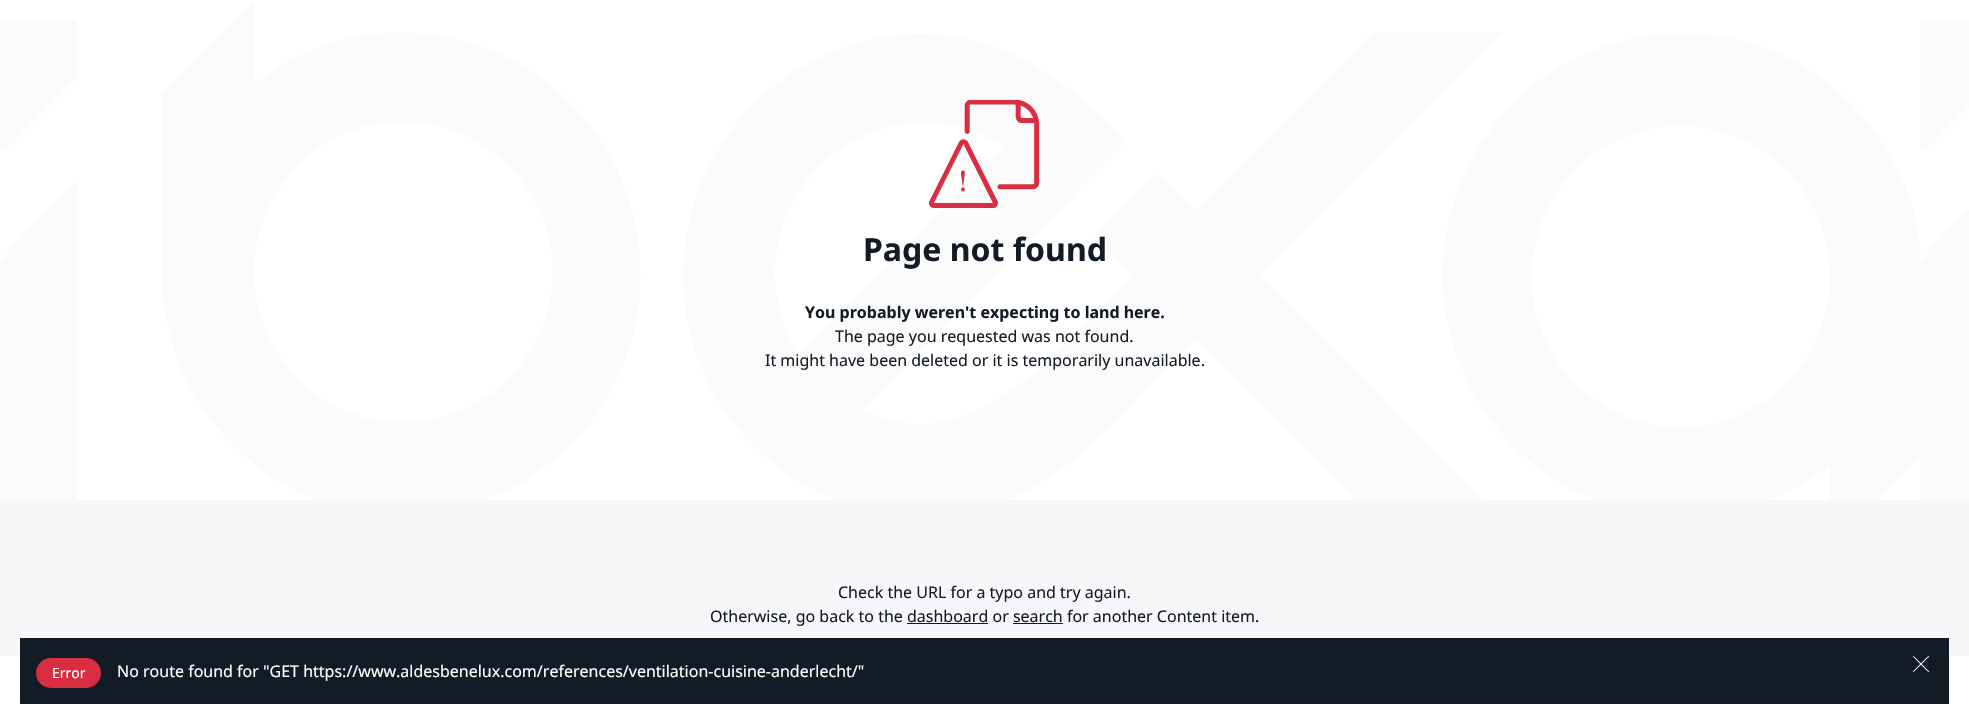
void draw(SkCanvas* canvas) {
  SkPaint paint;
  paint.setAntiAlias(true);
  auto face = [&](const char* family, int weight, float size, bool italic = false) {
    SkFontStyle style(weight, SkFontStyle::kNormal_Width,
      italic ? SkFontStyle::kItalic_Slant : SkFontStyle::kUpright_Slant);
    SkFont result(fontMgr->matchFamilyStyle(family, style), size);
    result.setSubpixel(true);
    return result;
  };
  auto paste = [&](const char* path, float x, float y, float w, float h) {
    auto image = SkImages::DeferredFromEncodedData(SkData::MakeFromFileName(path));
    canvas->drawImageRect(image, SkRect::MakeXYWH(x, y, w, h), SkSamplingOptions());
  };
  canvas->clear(0xfff7f7f9);
  paint.setColor(0xffffffff);
  canvas->drawRect(SkRect::MakeXYWH(0, 0, 1969, 500), paint);
  paste("img/1.png", 0, 2, 1969, 498);
  paste("img/2.png", 929, 100, 111, 108);
  {
    const struct { float x, y, w, h; SkColor color; } items[] = {
      {907, 623, 81, 1, 0xff131c26},
      {1013, 623, 50, 1, 0xff131c26},
      {0, 656, 1969, 50, 0xffffffff},
      {20, 638, 1929, 66, 0xff131c26},
    };
    for (auto [x, y, w, h, color] : items) {
      paint.setColor(color);
      canvas->drawRect(SkRect::MakeXYWH(x, y, w, h), paint);
    }
  }
  paint.setColor(0xffd92d42);
  canvas->drawRoundRect(SkRect::MakeXYWH(36, 658, 65, 30), 15, 15, paint);
  paste("img/3.png", 1913, 656, 16, 16);
  auto f0 = face("Noto Sans", 700, 32);
  paint.setColor(0xff131c26);
  canvas->drawString("Page not found", 863, 261, f0, paint);
  auto f1 = face("Noto Sans", 700, 16);
  canvas->drawString("You probably weren't expecting to land here.", 805, 318, f1, paint);
  auto f2 = face("Noto Sans", 400, 16);
  {
    const struct { const char* s; float x, y; } items[] = {
      {"The page you requested was not found.", 835, 342},
      {"It might have been deleted or it is temporarily unavailable.", 765, 366},
      {"Check the URL for a typo and try again.", 838, 598},
      {"Otherwise, go back to the dashboard or search for another Content item.", 710, 622},
    };
    for (auto [s, x, y] : items) {
      canvas->drawString(s, x, y, f2, paint);
    }
  }
  auto f3 = face("Noto Sans", 400, 14);
  paint.setColor(0xffffffff);
  canvas->drawString("Error", 52, 678, f3, paint);
  canvas->drawString("No route found for \"GET https://www.aldesbenelux.com/references/ventilation-cuisine-anderlecht/\"", 117, 677, f2, paint);
}
